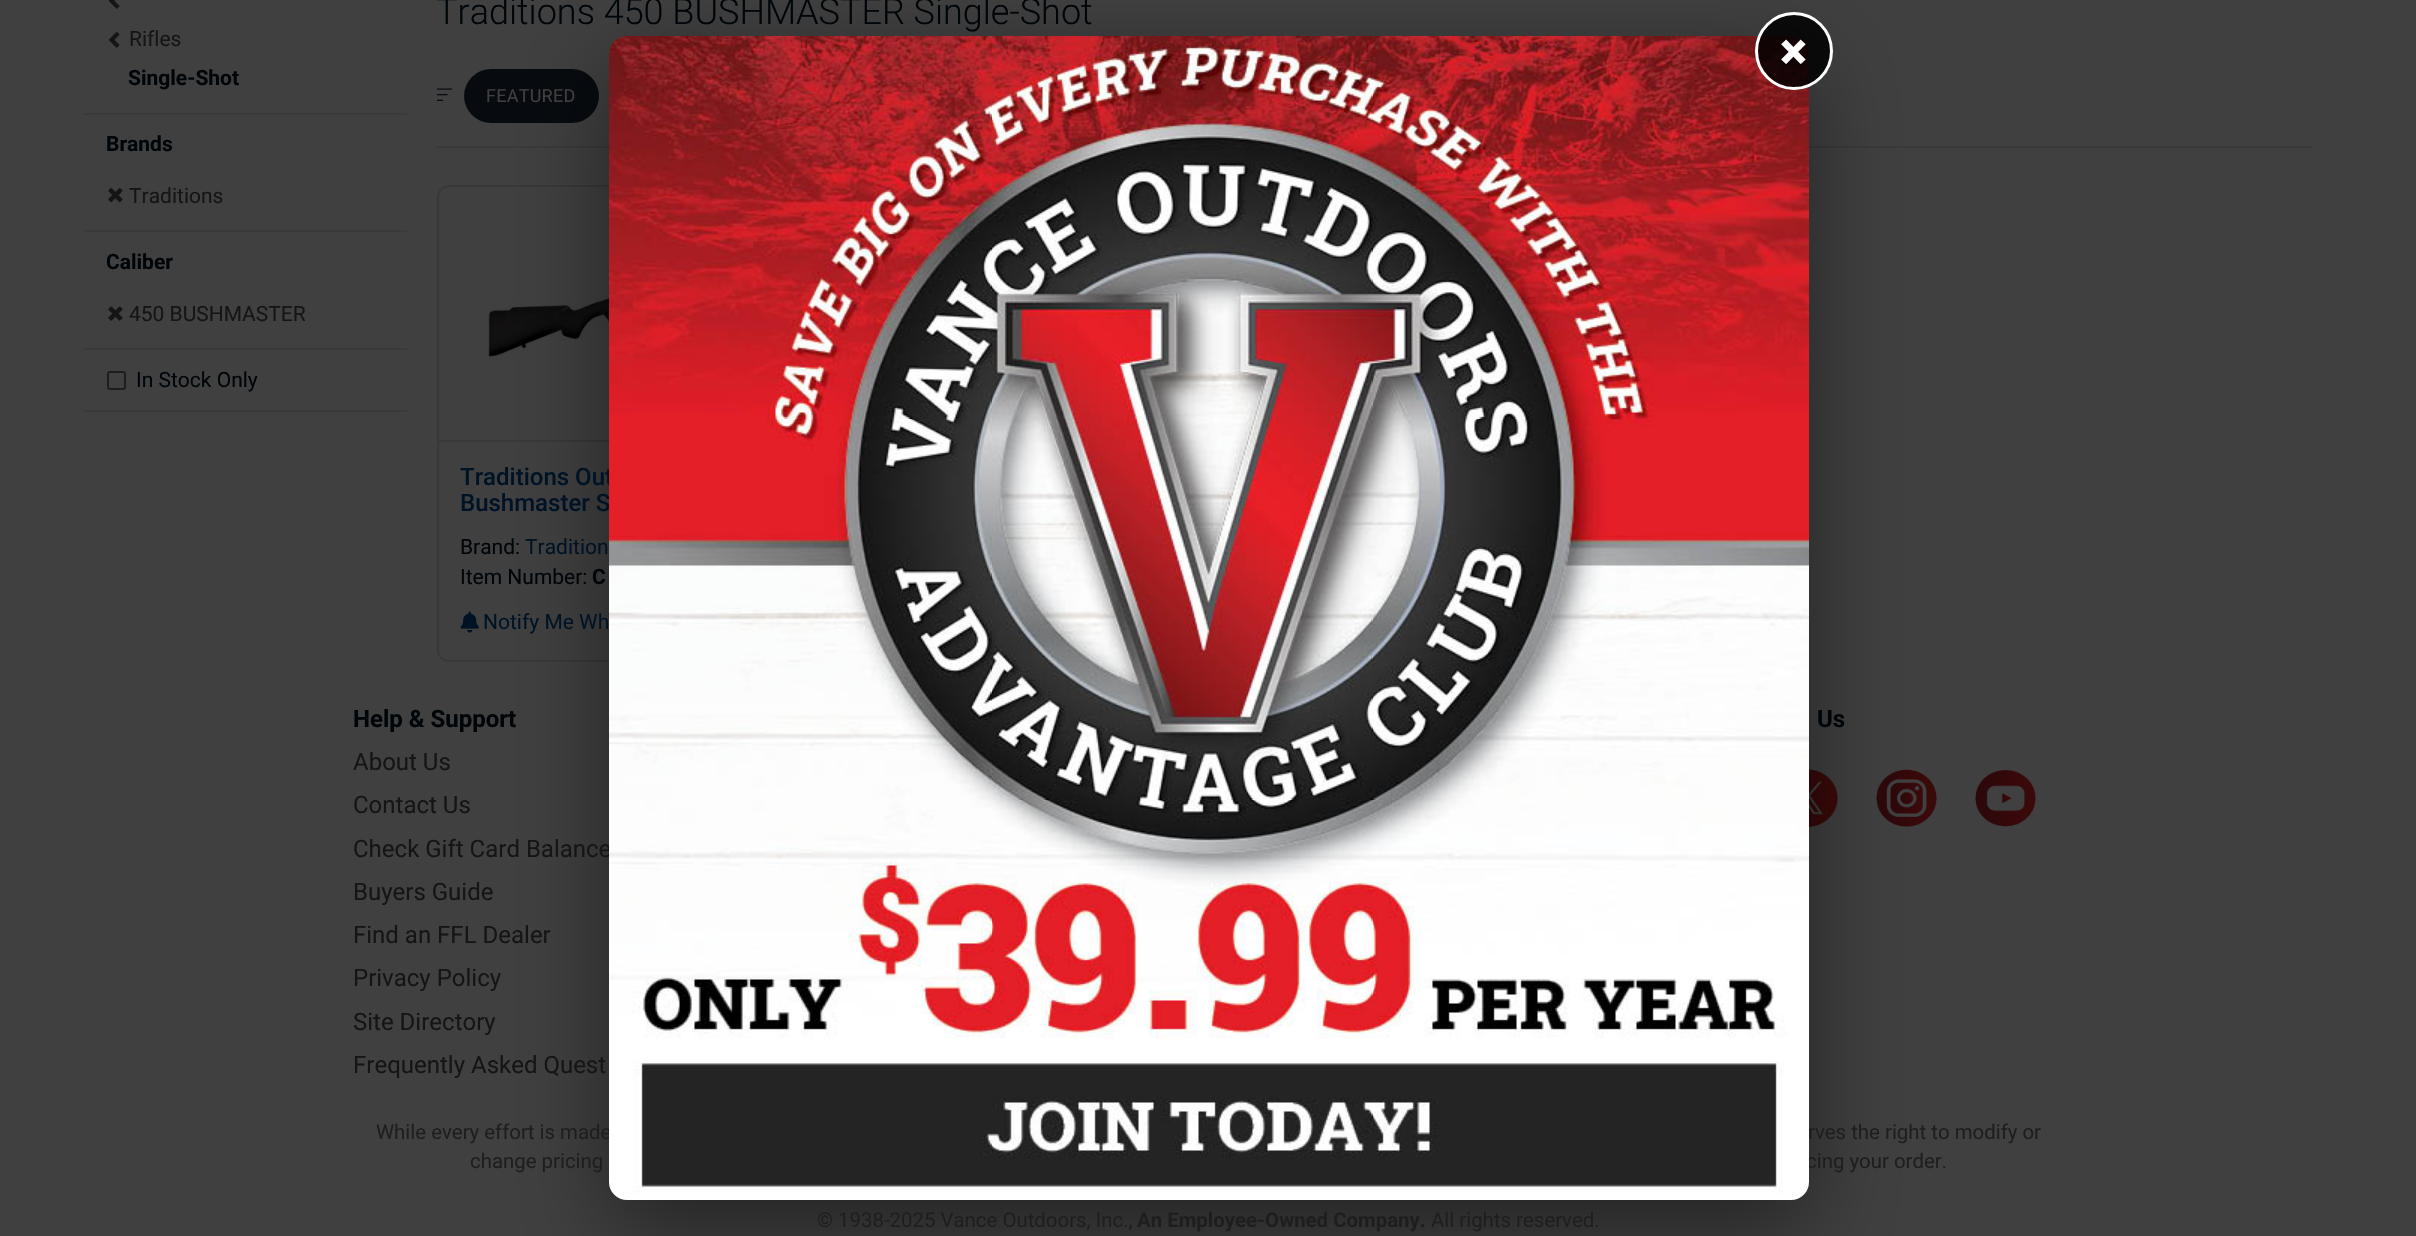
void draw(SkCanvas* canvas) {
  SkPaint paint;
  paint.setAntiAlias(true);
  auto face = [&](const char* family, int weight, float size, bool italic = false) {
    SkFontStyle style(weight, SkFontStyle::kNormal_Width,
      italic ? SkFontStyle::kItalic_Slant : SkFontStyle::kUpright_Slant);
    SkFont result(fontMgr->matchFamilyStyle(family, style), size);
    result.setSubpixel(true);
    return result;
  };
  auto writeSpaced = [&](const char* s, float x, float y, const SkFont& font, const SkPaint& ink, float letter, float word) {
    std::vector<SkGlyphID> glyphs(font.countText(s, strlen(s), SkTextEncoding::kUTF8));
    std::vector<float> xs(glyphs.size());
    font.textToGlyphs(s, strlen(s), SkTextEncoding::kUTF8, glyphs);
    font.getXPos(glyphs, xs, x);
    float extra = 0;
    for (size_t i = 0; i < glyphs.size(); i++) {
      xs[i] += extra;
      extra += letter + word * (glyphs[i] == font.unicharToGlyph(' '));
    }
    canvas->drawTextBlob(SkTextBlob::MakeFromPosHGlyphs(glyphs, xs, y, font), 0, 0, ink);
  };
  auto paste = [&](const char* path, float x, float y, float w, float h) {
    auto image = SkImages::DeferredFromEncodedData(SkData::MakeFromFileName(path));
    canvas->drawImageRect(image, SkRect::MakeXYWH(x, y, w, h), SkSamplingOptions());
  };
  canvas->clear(0xff404040);
  paint.setColor(0xff3a3a3a);
  canvas->drawRect(SkRect::MakeXYWH(84, 410, 323, 2), paint);
  paste("img/1.png", 108, 0, 12, 9);
  paste("img/2.png", 108, 31, 12, 17);
  canvas->drawRect(SkRect::MakeXYWH(84, 113, 323, 2), paint);
  paste("img/3.png", 108, 187, 15, 16);
  canvas->drawRect(SkRect::MakeXYWH(84, 230, 323, 2), paint);
  paste("img/4.png", 108, 306, 15, 15);
  canvas->drawRect(SkRect::MakeXYWH(84, 348, 323, 2), paint);
  paint.setStroke(true);
  paint.setStrokeWidth(2);
  paint.setColor(0xff1e1e1e);
  canvas->drawRoundRect(SkRect::MakeXYWH(108, 372, 17, 17), 2, 2, paint);
  paint.setStroke(false);
  paint.setColor(0xff3a3a3a);
  canvas->drawRect(SkRect::MakeXYWH(437, 146, 1875, 2), paint);
  paste("img/5.png", 437, 88, 16, 13);
  paint.setColor(0xff070b0f);
  canvas->drawRoundRect(SkRect::MakeXYWH(464, 69, 135, 54), 27, 27, paint);
  paint.setStroke(true);
  paint.setColor(0xff383838);
  canvas->drawRoundRect(SkRect::MakeXYWH(438, 186, 449, 475), 11, 11, paint);
  paint.setStroke(false);
  canvas->drawRect(SkRect::MakeXYWH(438, 440, 171, 2), paint);
  paste("img/6.png", 488, 290, 121, 70);
  paste("img/7.png", 460, 611, 19, 22);
  paste("img/9.png", 1809, 769, 29, 58);
  paste("img/10.png", 1876, 769, 61, 58);
  paint.setColor(0x73000000);
  paint.setMaskFilter(SkMaskFilter::MakeBlur(kNormal_SkBlurStyle, 45));
  canvas->drawRoundRect(SkRect::MakeXYWH(609, 66, 1200, 1164), 18, 18, paint);
  paint.setMaskFilter(nullptr);
  paste("img/11.png", 1975, 770, 61, 57);
  auto f0 = face("Roboto", 400, 21);
  paint.setColor(0xff151515);
  canvas->drawString("Rifles", 129, 46, f0, paint);
  auto f1 = face("Roboto", 700, 21);
  paint.setColor(0xff000509);
  canvas->drawString("Single-Shot", 128, 85, f1, paint);
  canvas->drawString("Brands", 106, 151, f1, paint);
  paint.setColor(0xff151515);
  canvas->drawString("Traditions", 129, 203, f0, paint);
  paint.setColor(0xff000509);
  canvas->drawString("Caliber", 106, 269, f1, paint);
  paint.setColor(0xff151515);
  canvas->drawString("450 BUSHMASTER", 129, 321, f0, paint);
  paint.setColor(0xff000509);
  canvas->drawString("In Stock Only", 136, 387, f0, paint);
  auto f2 = face("Roboto", 300, 36);
  canvas->drawString("Traditions 450 BUSHMASTER Single-Shot", 436, 24, f2, paint);
  auto f3 = face("Roboto", 400, 18);
  paint.setColor(0xff404040);
  writeSpaced("FEATURED", 486, 102, f3, paint, 0.25f, 0);
  auto f4 = face("Roboto", 500, 24);
  paint.setColor(0xff001324);
  canvas->drawString("Traditions Out", 460, 485, f4, paint);
  canvas->drawString("Bushmaster S", 460, 511, f4, paint);
  paint.setColor(0xff000509);
  canvas->drawString("Brand:", 460, 554, f0, paint);
  paint.setColor(0xff001324);
  canvas->drawString("Tradition", 525, 554, f0, paint);
  paint.setColor(0xff000509);
  canvas->drawString("Item Number:", 460, 584, f0, paint);
  canvas->drawString("C", 592, 584, f1, paint);
  paint.setColor(0xff001324);
  canvas->drawString("Notify Me Wh", 483, 629, f0, paint);
  auto f5 = face("Roboto", 700, 24);
  paint.setColor(0xff000509);
  canvas->drawString("Help & Support", 353, 727, f5, paint);
  auto f6 = face("Roboto", 400, 24);
  paint.setColor(0xff151515);
  {
    const struct { const char* s; float x, y; } items[] = {
      {"About Us", 353, 770},
      {"Contact Us", 353, 813},
      {"Check Gift Card Balance", 353, 857},
      {"Buyers Guide", 353, 900},
      {"Find an FFL Dealer", 353, 943},
      {"Privacy Policy", 353, 986},
      {"Site Directory", 353, 1030},
      {"Frequently Asked Quest", 353, 1073},
    };
    for (auto [s, x, y] : items) {
      canvas->drawString(s, x, y, f6, paint);
    }
  }
  paint.setColor(0xff000509);
  canvas->drawString("Us", 1817, 727, f5, paint);
  auto f7 = face("Roboto", 400, 20.4f);
  paint.setColor(0xff1e1e1e);
  {
    const struct { const char* s; float x, y; } items[] = {
      {"While every effort is made", 376, 1139},
      {"rves the right to modify or", 1808, 1139},
      {"change pricing", 470, 1168},
      {"cing your order.", 1806, 1168},
    };
    for (auto [s, x, y] : items) {
      canvas->drawString(s, x, y, f7, paint);
    }
  }
  paste("img/8.png", 609, 36, 1200, 1164);
  paint.setColor(0xd9000000);
  canvas->drawCircle(1794, 51, 37.5f, paint);
  paint.setStroke(true);
  paint.setStrokeWidth(3);
  paint.setColor(0xffffffff);
  canvas->drawCircle(1794, 51, 37.5f, paint);
  auto f8 = face("Roboto", 900, 51);
  paint.setStroke(false);
  canvas->drawString("×", 1780, 69, f8, paint);
  paint.setColor(0xff1e1e1e);
  canvas->drawString("© 1938-2025 Vance Outdoors, Inc.,", 817, 1227, f7, paint);
  auto f9 = face("Roboto", 700, 20.4f);
  canvas->drawString("An Employee-Owned Company.", 1137, 1227, f9, paint);
  canvas->drawString("All rights reserved.", 1431, 1227, f7, paint);
}
